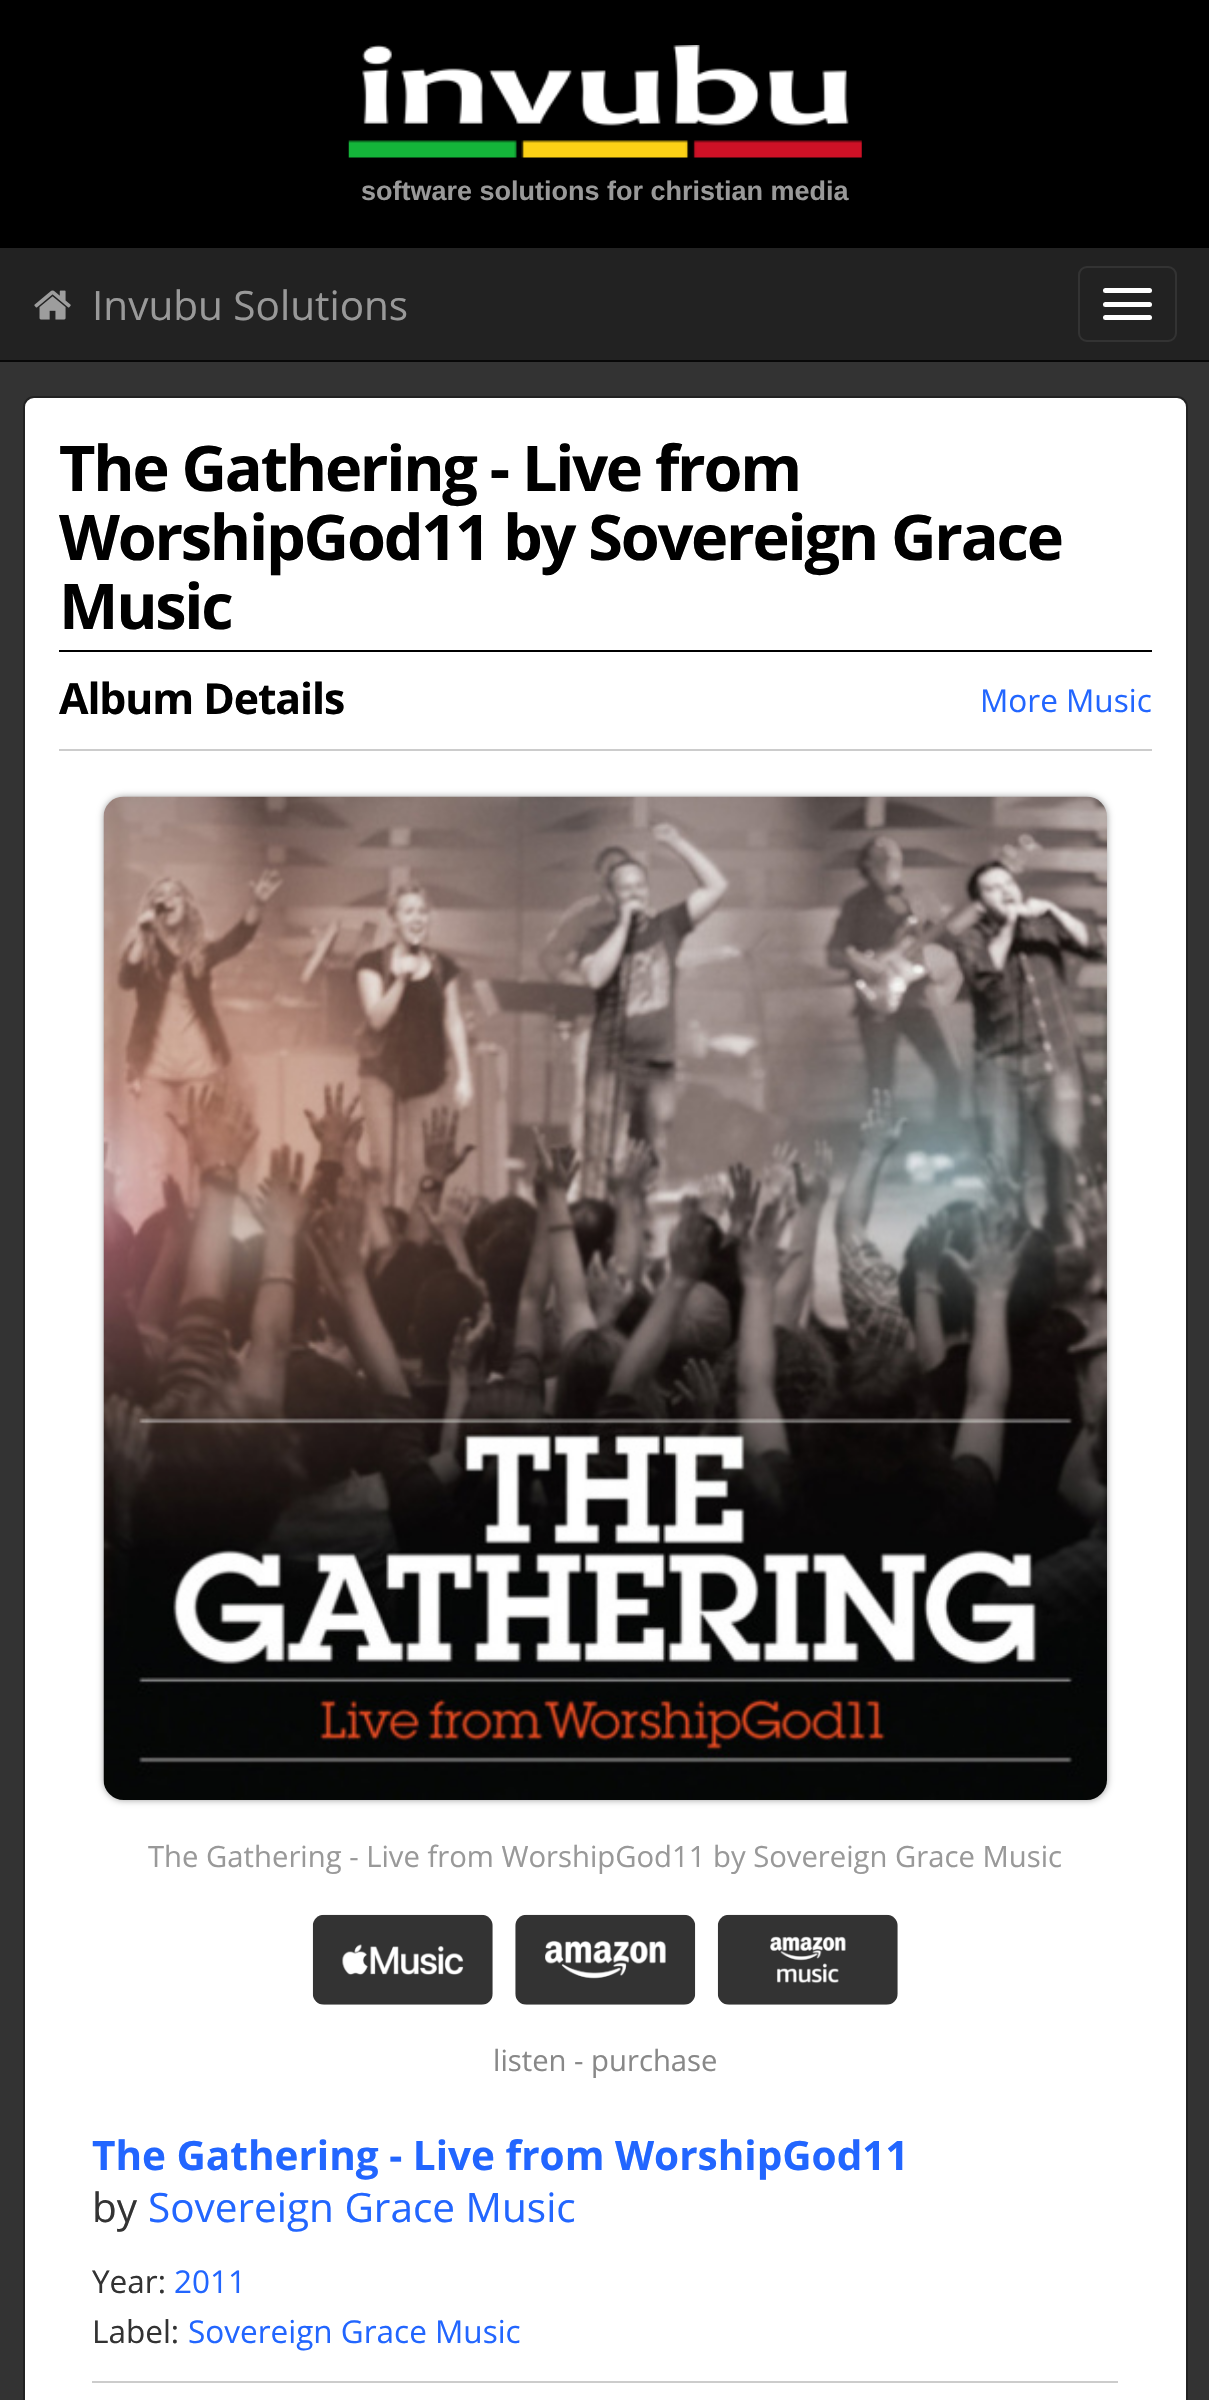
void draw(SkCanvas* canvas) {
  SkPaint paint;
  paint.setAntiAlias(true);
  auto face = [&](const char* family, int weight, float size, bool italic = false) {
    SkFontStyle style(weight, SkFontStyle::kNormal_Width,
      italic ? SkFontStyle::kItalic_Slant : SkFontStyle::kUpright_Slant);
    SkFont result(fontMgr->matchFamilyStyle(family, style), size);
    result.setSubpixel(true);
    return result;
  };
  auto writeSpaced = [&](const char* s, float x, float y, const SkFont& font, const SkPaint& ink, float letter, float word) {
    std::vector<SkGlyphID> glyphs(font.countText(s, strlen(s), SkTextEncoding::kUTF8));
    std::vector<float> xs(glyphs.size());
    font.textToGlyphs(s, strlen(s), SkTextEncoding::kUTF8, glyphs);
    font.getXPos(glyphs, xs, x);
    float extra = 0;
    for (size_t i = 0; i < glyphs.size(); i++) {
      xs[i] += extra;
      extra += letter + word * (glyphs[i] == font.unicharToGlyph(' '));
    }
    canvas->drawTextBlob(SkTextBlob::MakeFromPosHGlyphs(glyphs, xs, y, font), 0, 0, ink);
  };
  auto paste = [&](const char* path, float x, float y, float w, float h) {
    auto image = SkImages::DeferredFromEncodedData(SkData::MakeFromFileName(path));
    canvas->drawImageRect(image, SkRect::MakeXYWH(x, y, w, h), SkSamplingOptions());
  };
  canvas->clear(0xff333333);
  paint.setColor(0xff000000);
  canvas->drawRect(SkRect::MakeXYWH(0, 0, 1209, 248), paint);
  paste("img/1.png", 348, 45, 514, 113);
  paint.setColor(0xff222222);
  canvas->drawRect(SkRect::MakeXYWH(0, 248, 1209, 112), paint);
  paint.setColor(0xff080808);
  canvas->drawRect(SkRect::MakeXYWH(0, 360, 1209, 2), paint);
  paste("img/2.png", 34, 290, 37, 30);
  paint.setStroke(true);
  paint.setStrokeWidth(2);
  paint.setColor(0xff333333);
  canvas->drawRoundRect(SkRect::MakeXYWH(1079, 267, 97, 74), 8, 8, paint);
  paint.setStroke(false);
  paint.setColor(0xffffffff);
  canvas->drawRoundRect(SkRect::MakeXYWH(1103, 288, 49, 5), 2.5f, 2.5f, paint);
  canvas->drawRoundRect(SkRect::MakeXYWH(1103, 302, 49, 5), 2.5f, 2.5f, paint);
  canvas->drawRoundRect(SkRect::MakeXYWH(1103, 315, 49, 5), 2.5f, 2.5f, paint);
  canvas->drawRoundRect(SkRect::MakeXYWH(24, 397, 1163, 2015), 10, 10, paint);
  paint.setStroke(true);
  paint.setColor(0xff222222);
  canvas->drawRoundRect(SkRect::MakeXYWH(24, 397, 1163, 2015), 10, 10, paint);
  paint.setStroke(false);
  paint.setColor(0xff000000);
  canvas->drawRect(SkRect::MakeXYWH(59, 650, 1093, 2), paint);
  paint.setColor(0xffcccccc);
  canvas->drawRect(SkRect::MakeXYWH(59, 749, 1093, 2), paint);
  paint.setColor(0xff999999);
  paint.setMaskFilter(SkMaskFilter::MakeBlur(kNormal_SkBlurStyle, 3.5f));
  canvas->drawRoundRect(SkRect::MakeXYWH(104, 797, 1003, 1003), 20, 20, paint);
  paint.setMaskFilter(nullptr);
  paste("img/3.png", 103, 796, 1004, 1004);
  paste("img/4.png", 312, 1914, 181, 91);
  paste("img/5.png", 515, 1914, 181, 91);
  paste("img/6.png", 717, 1914, 181, 91);
  paint.setColor(0xffcccccc);
  canvas->drawRect(SkRect::MakeXYWH(92, 2381, 1026, 2), paint);
  auto f0 = face("Liberation Sans", 700, 27);
  paint.setColor(0xff999999);
  canvas->drawString("software solutions for christian media", 361, 200, f0, paint);
  auto f1 = face("Open Sans", 400, 40.5f);
  canvas->drawString("Invubu Solutions", 92, 320, f1, paint);
  auto f2 = face("Open Sans", 700, 63);
  paint.setColor(0xff000000);
  {
    const struct { const char* s; float x, y; } items[] = {
      {"The Gathering - Live from", 59, 491},
      {"WorshipGod11 by Sovereign Grace", 59, 560},
      {"Music", 59, 629},
    };
    for (auto [s, x, y] : items) {
      writeSpaced(s, x, y, f2, paint, -2.25f, 0);
    }
  }
  auto f3 = face("Open Sans", 700, 42.75f);
  writeSpaced("Album Details", 59, 714, f3, paint, -1.1f, 0);
  auto f4 = face("Open Sans", 400, 31.5f);
  paint.setColor(0xff2266ff);
  canvas->drawString("More Music", 980, 712, f4, paint);
  auto f5 = face("Open Sans", 400, 29.25f);
  paint.setColor(0xff999999);
  canvas->drawString("The Gathering - Live from WorshipGod11 by Sovereign Grace Music", 148, 1867, f5, paint);
  paint.setColor(0xff888888);
  canvas->drawString("listen - purchase", 493, 2071, f5, paint);
  auto f6 = face("Open Sans", 700, 40.5f);
  paint.setColor(0xff2266ff);
  canvas->drawString("The Gathering - Live from WorshipGod11", 92, 2170, f6, paint);
  paint.setColor(0xff333333);
  canvas->drawString("by", 92, 2222, f1, paint);
  paint.setColor(0xff2266ff);
  canvas->drawString("Sovereign Grace Music", 148, 2222, f1, paint);
  paint.setColor(0xff333333);
  canvas->drawString("Year:", 92, 2293, f4, paint);
  paint.setColor(0xff2266ff);
  canvas->drawString("2011", 174, 2293, f4, paint);
  paint.setColor(0xff333333);
  canvas->drawString("Label:", 92, 2343, f4, paint);
  paint.setColor(0xff2266ff);
  canvas->drawString("Sovereign Grace Music", 188, 2343, f4, paint);
}
